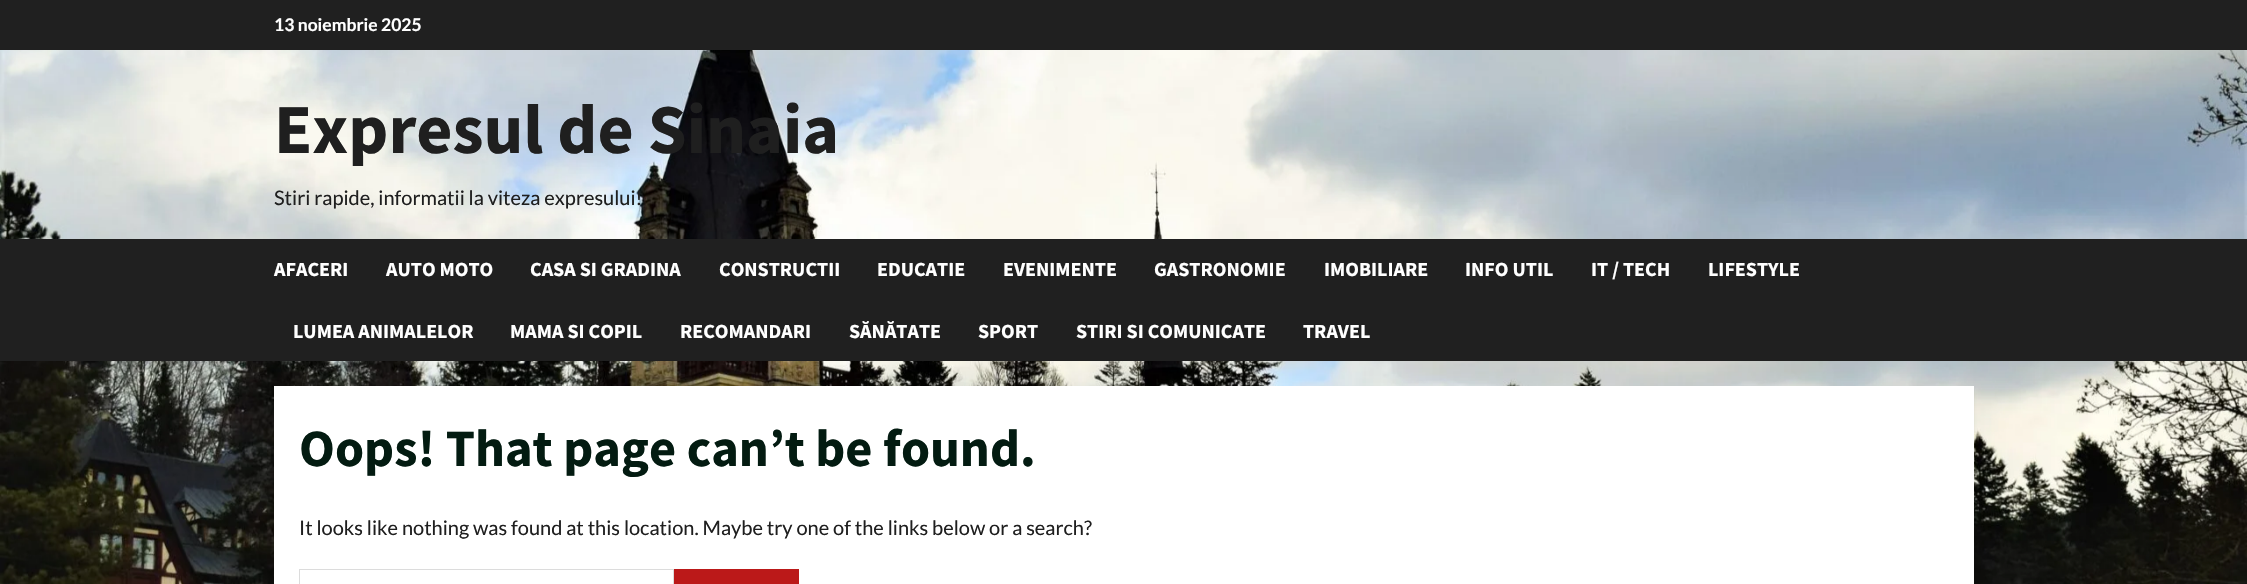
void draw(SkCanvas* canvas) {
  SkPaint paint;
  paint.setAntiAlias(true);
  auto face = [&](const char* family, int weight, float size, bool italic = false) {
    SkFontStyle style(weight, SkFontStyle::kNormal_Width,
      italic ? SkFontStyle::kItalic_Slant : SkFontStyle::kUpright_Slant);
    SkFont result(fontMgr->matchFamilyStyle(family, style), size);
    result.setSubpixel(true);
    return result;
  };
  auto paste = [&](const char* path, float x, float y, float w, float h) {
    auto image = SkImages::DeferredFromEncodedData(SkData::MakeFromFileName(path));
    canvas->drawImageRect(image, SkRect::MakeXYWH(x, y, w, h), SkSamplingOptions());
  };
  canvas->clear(0xffffffff);
  paste("img/1.png", 0, 50, 2247, 534);
  paint.setColor(0xff202020);
  canvas->drawRect(SkRect::MakeXYWH(0, 0, 2247, 50), paint);
  canvas->drawRect(SkRect::MakeXYWH(0, 239, 2247, 122), paint);
  paint.setColor(0x14000000);
  paint.setMaskFilter(SkMaskFilter::MakeBlur(kNormal_SkBlurStyle, 1));
  canvas->drawRect(SkRect::MakeXYWH(274, 389, 1700, 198), paint);
  paint.setMaskFilter(nullptr);
  paint.setColor(0xffffffff);
  canvas->drawRect(SkRect::MakeXYWH(274, 386, 1700, 198), paint);
  paint.setStroke(true);
  paint.setStrokeWidth(1);
  paint.setColor(0xffdcdcdc);
  canvas->drawRect(SkRect::MakeXYWH(299.5f, 569.5f, 374, 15), paint);
  paint.setStroke(false);
  paint.setColor(0xffbb1919);
  canvas->drawRect(SkRect::MakeXYWH(674, 569, 125, 15), paint);
  auto f0 = face("Lato", 700, 17.5f);
  paint.setColor(0xffffffff);
  canvas->drawString("13 noiembrie 2025", 274, 31, f0, paint);
  auto f1 = face("Source Sans Pro", 700, 70);
  paint.setColor(0xff1f1f1f);
  canvas->drawString("Expresul de Sinaia", 274, 153, f1, paint);
  auto f2 = face("Lato", 400, 20);
  canvas->drawString("Stiri rapide, informatii la viteza expresului!", 274, 205, f2, paint);
  auto f3 = face("Source Sans Pro", 700, 20);
  paint.setColor(0xffffffff);
  {
    const struct { const char* s; float x, y; } items[] = {
      {"AFACERI", 274, 276},
      {"AUTO MOTO", 386, 276},
      {"CASA SI GRADINA", 530, 276},
      {"CONSTRUCTII", 719, 276},
      {"EDUCATIE", 877, 276},
      {"EVENIMENTE", 1003, 276},
      {"GASTRONOMIE", 1154, 276},
      {"IMOBILIARE", 1324, 276},
      {"INFO UTIL", 1465, 276},
      {"IT / TECH", 1591, 276},
      {"LIFESTYLE", 1708, 276},
      {"LUMEA ANIMALELOR", 293, 338},
      {"MAMA SI COPIL", 510, 338},
      {"RECOMANDARI", 680, 338},
      {"SĂNĂTATE", 849, 338},
      {"SPORT", 978, 338},
      {"STIRI SI COMUNICATE", 1076, 338},
      {"TRAVEL", 1303, 338},
    };
    for (auto [s, x, y] : items) {
      canvas->drawString(s, x, y, f3, paint);
    }
  }
  auto f4 = face("Source Sans Pro", 700, 52.5f);
  paint.setColor(0xff031b11);
  canvas->drawString("Oops! That page can’t be found.", 299, 466, f4, paint);
  paint.setColor(0xff1f1f1f);
  canvas->drawString("It looks like nothing was found at this location. Maybe try one of the links below or a search?", 299, 535, f2, paint);
}
